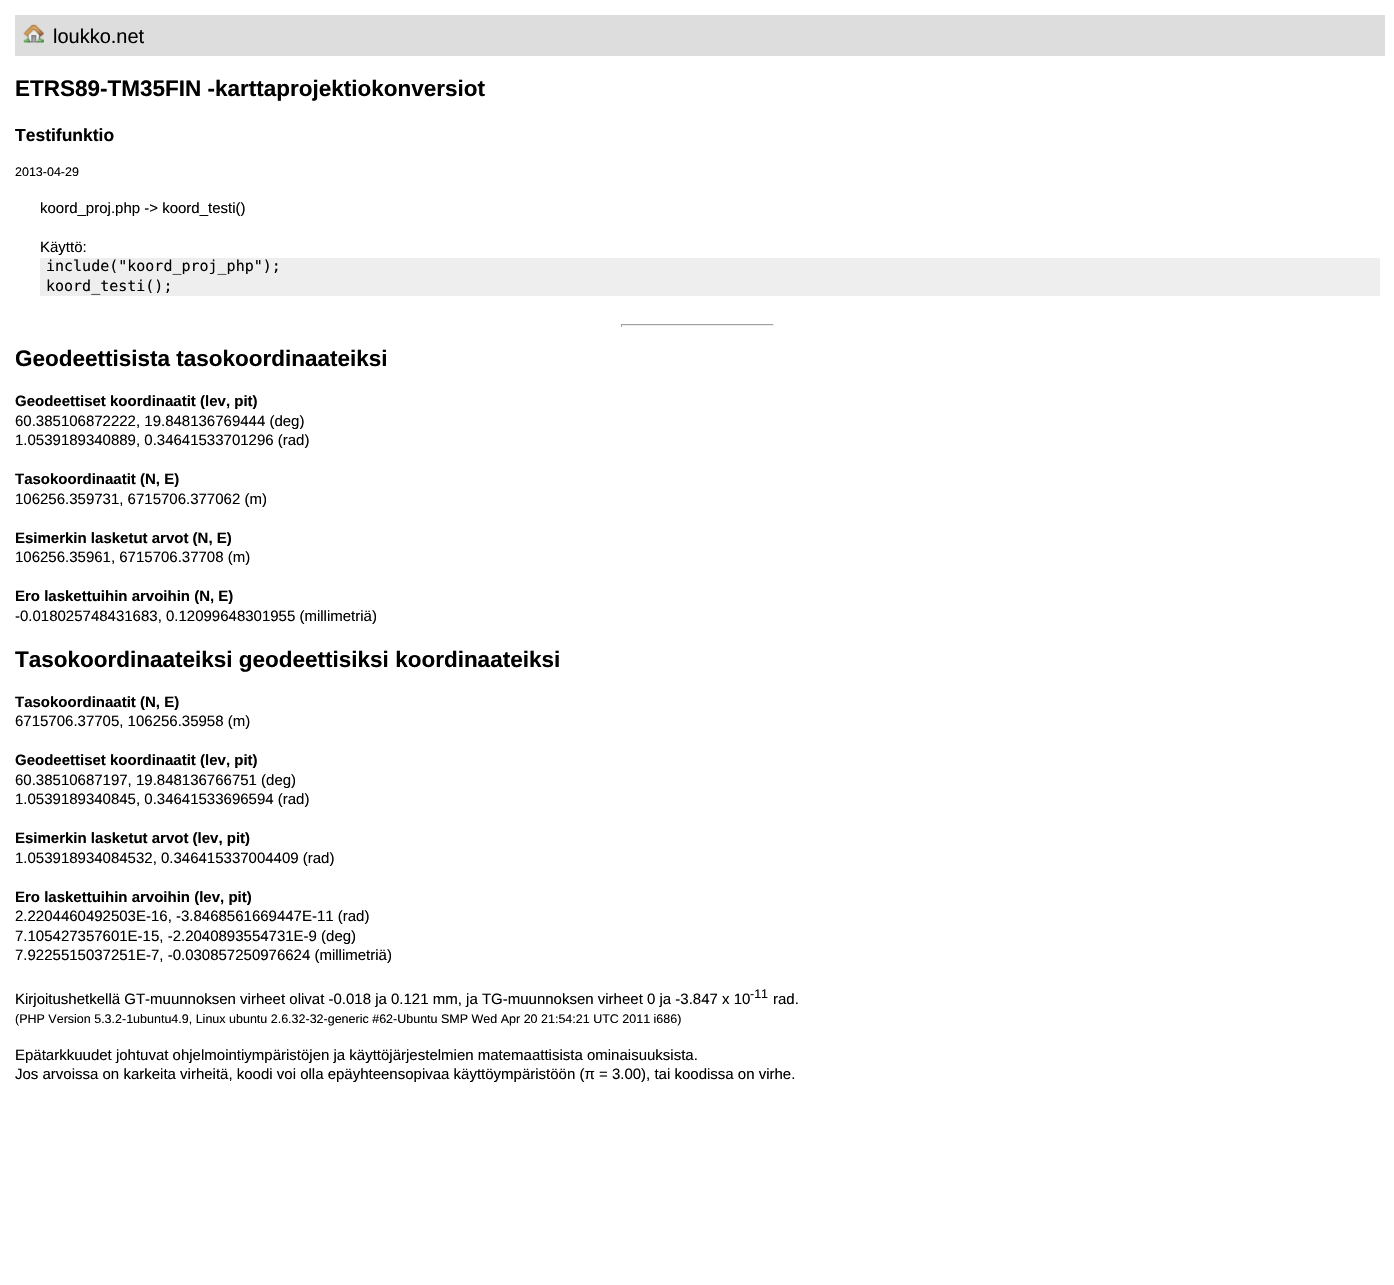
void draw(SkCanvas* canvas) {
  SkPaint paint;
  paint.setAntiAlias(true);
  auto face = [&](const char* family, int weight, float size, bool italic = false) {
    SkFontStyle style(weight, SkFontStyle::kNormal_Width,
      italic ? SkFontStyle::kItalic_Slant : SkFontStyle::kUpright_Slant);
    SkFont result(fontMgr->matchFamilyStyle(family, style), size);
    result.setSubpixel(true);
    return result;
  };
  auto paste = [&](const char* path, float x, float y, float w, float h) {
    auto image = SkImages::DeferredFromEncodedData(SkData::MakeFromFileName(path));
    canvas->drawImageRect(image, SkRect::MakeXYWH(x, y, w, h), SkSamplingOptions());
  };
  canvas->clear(0xffffffff);
  paint.setColor(0xffdddddd);
  canvas->drawRect(SkRect::MakeXYWH(15, 15, 1370, 41), paint);
  paste("img/1.png", 23, 23, 21, 20);
  {
    const struct { float x, y, w, h; SkColor color; } items[] = {
      {40, 258, 1340, 38, 0xffeeeeee},
      {621, 324, 153, 1, 0xff9f9f9f},
      {773, 324, 1, 3, 0xffeeeeee},
      {621, 325, 153, 1, 0xffeeeeee},
      {621, 324, 1, 3, 0xff9f9f9f},
    };
    for (auto [x, y, w, h, color] : items) {
      paint.setColor(color);
      canvas->drawRect(SkRect::MakeXYWH(x, y, w, h), paint);
    }
  }
  auto f0 = face("Liberation Sans", 400, 20);
  paint.setColor(0xff000000);
  canvas->drawString("loukko.net", 53, 43, f0, paint);
  auto f1 = face("Liberation Sans", 700, 22.5f);
  canvas->drawString("ETRS89-TM35FIN -karttaprojektiokonversiot", 15, 96, f1, paint);
  auto f2 = face("Liberation Sans", 700, 17.5f);
  canvas->drawString("Testifunktio", 15, 141, f2, paint);
  auto f3 = face("Liberation Sans", 400, 12.5f);
  canvas->drawString("2013-04-29", 15, 176, f3, paint);
  auto f4 = face("Liberation Sans", 400, 15);
  canvas->drawString("koord_proj.php -> koord_testi()", 40, 213, f4, paint);
  canvas->drawString("Käyttö:", 40, 252, f4, paint);
  auto f5 = face("DejaVu Sans Mono", 400, 15);
  canvas->drawString("include(\"koord_proj_php\");", 46, 271, f5, paint);
  canvas->drawString("koord_testi();", 46, 291, f5, paint);
  canvas->drawString("Geodeettisista tasokoordinaateiksi", 15, 366, f1, paint);
  auto f6 = face("Liberation Sans", 700, 15);
  canvas->drawString("Geodeettiset koordinaatit (lev, pit)", 15, 406, f6, paint);
  canvas->drawString("60.385106872222, 19.848136769444 (deg)", 15, 426, f4, paint);
  canvas->drawString("1.0539189340889, 0.34641533701296 (rad)", 15, 445, f4, paint);
  canvas->drawString("Tasokoordinaatit (N, E)", 15, 484, f6, paint);
  canvas->drawString("106256.359731, 6715706.377062 (m)", 15, 504, f4, paint);
  canvas->drawString("Esimerkin lasketut arvot (N, E)", 15, 543, f6, paint);
  canvas->drawString("106256.35961, 6715706.37708 (m)", 15, 562, f4, paint);
  canvas->drawString("Ero laskettuihin arvoihin (N, E)", 15, 601, f6, paint);
  canvas->drawString("-0.018025748431683, 0.12099648301955 (millimetriä)", 15, 621, f4, paint);
  canvas->drawString("Tasokoordinaateiksi geodeettisiksi koordinaateiksi", 15, 667, f1, paint);
  canvas->drawString("Tasokoordinaatit (N, E)", 15, 707, f6, paint);
  canvas->drawString("6715706.37705, 106256.35958 (m)", 15, 726, f4, paint);
  canvas->drawString("Geodeettiset koordinaatit (lev, pit)", 15, 765, f6, paint);
  canvas->drawString("60.38510687197, 19.848136766751 (deg)", 15, 785, f4, paint);
  canvas->drawString("1.0539189340845, 0.34641533696594 (rad)", 15, 804, f4, paint);
  canvas->drawString("Esimerkin lasketut arvot (lev, pit)", 15, 843, f6, paint);
  canvas->drawString("1.053918934084532, 0.346415337004409 (rad)", 15, 863, f4, paint);
  canvas->drawString("Ero laskettuihin arvoihin (lev, pit)", 15, 902, f6, paint);
  {
    const struct { const char* s; float x, y; } items[] = {
      {"2.2204460492503E-16, -3.8468561669447E-11 (rad)", 15, 921},
      {"7.105427357601E-15, -2.2040893554731E-9 (deg)", 15, 941},
      {"7.9225515037251E-7, -0.030857250976624 (millimetriä)", 15, 960},
      {"Kirjoitushetkellä GT-muunnoksen virheet olivat -0.018 ja 0.121 mm, ja TG-muunnoksen virheet 0 ja -3.847 x 10", 15, 1004},
    };
    for (auto [s, x, y] : items) {
      canvas->drawString(s, x, y, f4, paint);
    }
  }
  canvas->drawString("-11", 750, 998, f3, paint);
  canvas->drawString("rad.", 773, 1004, f4, paint);
  canvas->drawString("(PHP Version 5.3.2-1ubuntu4.9, Linux ubuntu 2.6.32-32-generic #62-Ubuntu SMP Wed Apr 20 21:54:21 UTC 2011 i686)", 15, 1023, f3, paint);
  canvas->drawString("Epätarkkuudet johtuvat ohjelmointiympäristöjen ja käyttöjärjestelmien matemaattisista ominaisuuksista.", 15, 1060, f4, paint);
  canvas->drawString("Jos arvoissa on karkeita virheitä, koodi voi olla epäyhteensopivaa käyttöympäristöön (π = 3.00), tai koodissa on virhe.", 15, 1079, f4, paint);
}
